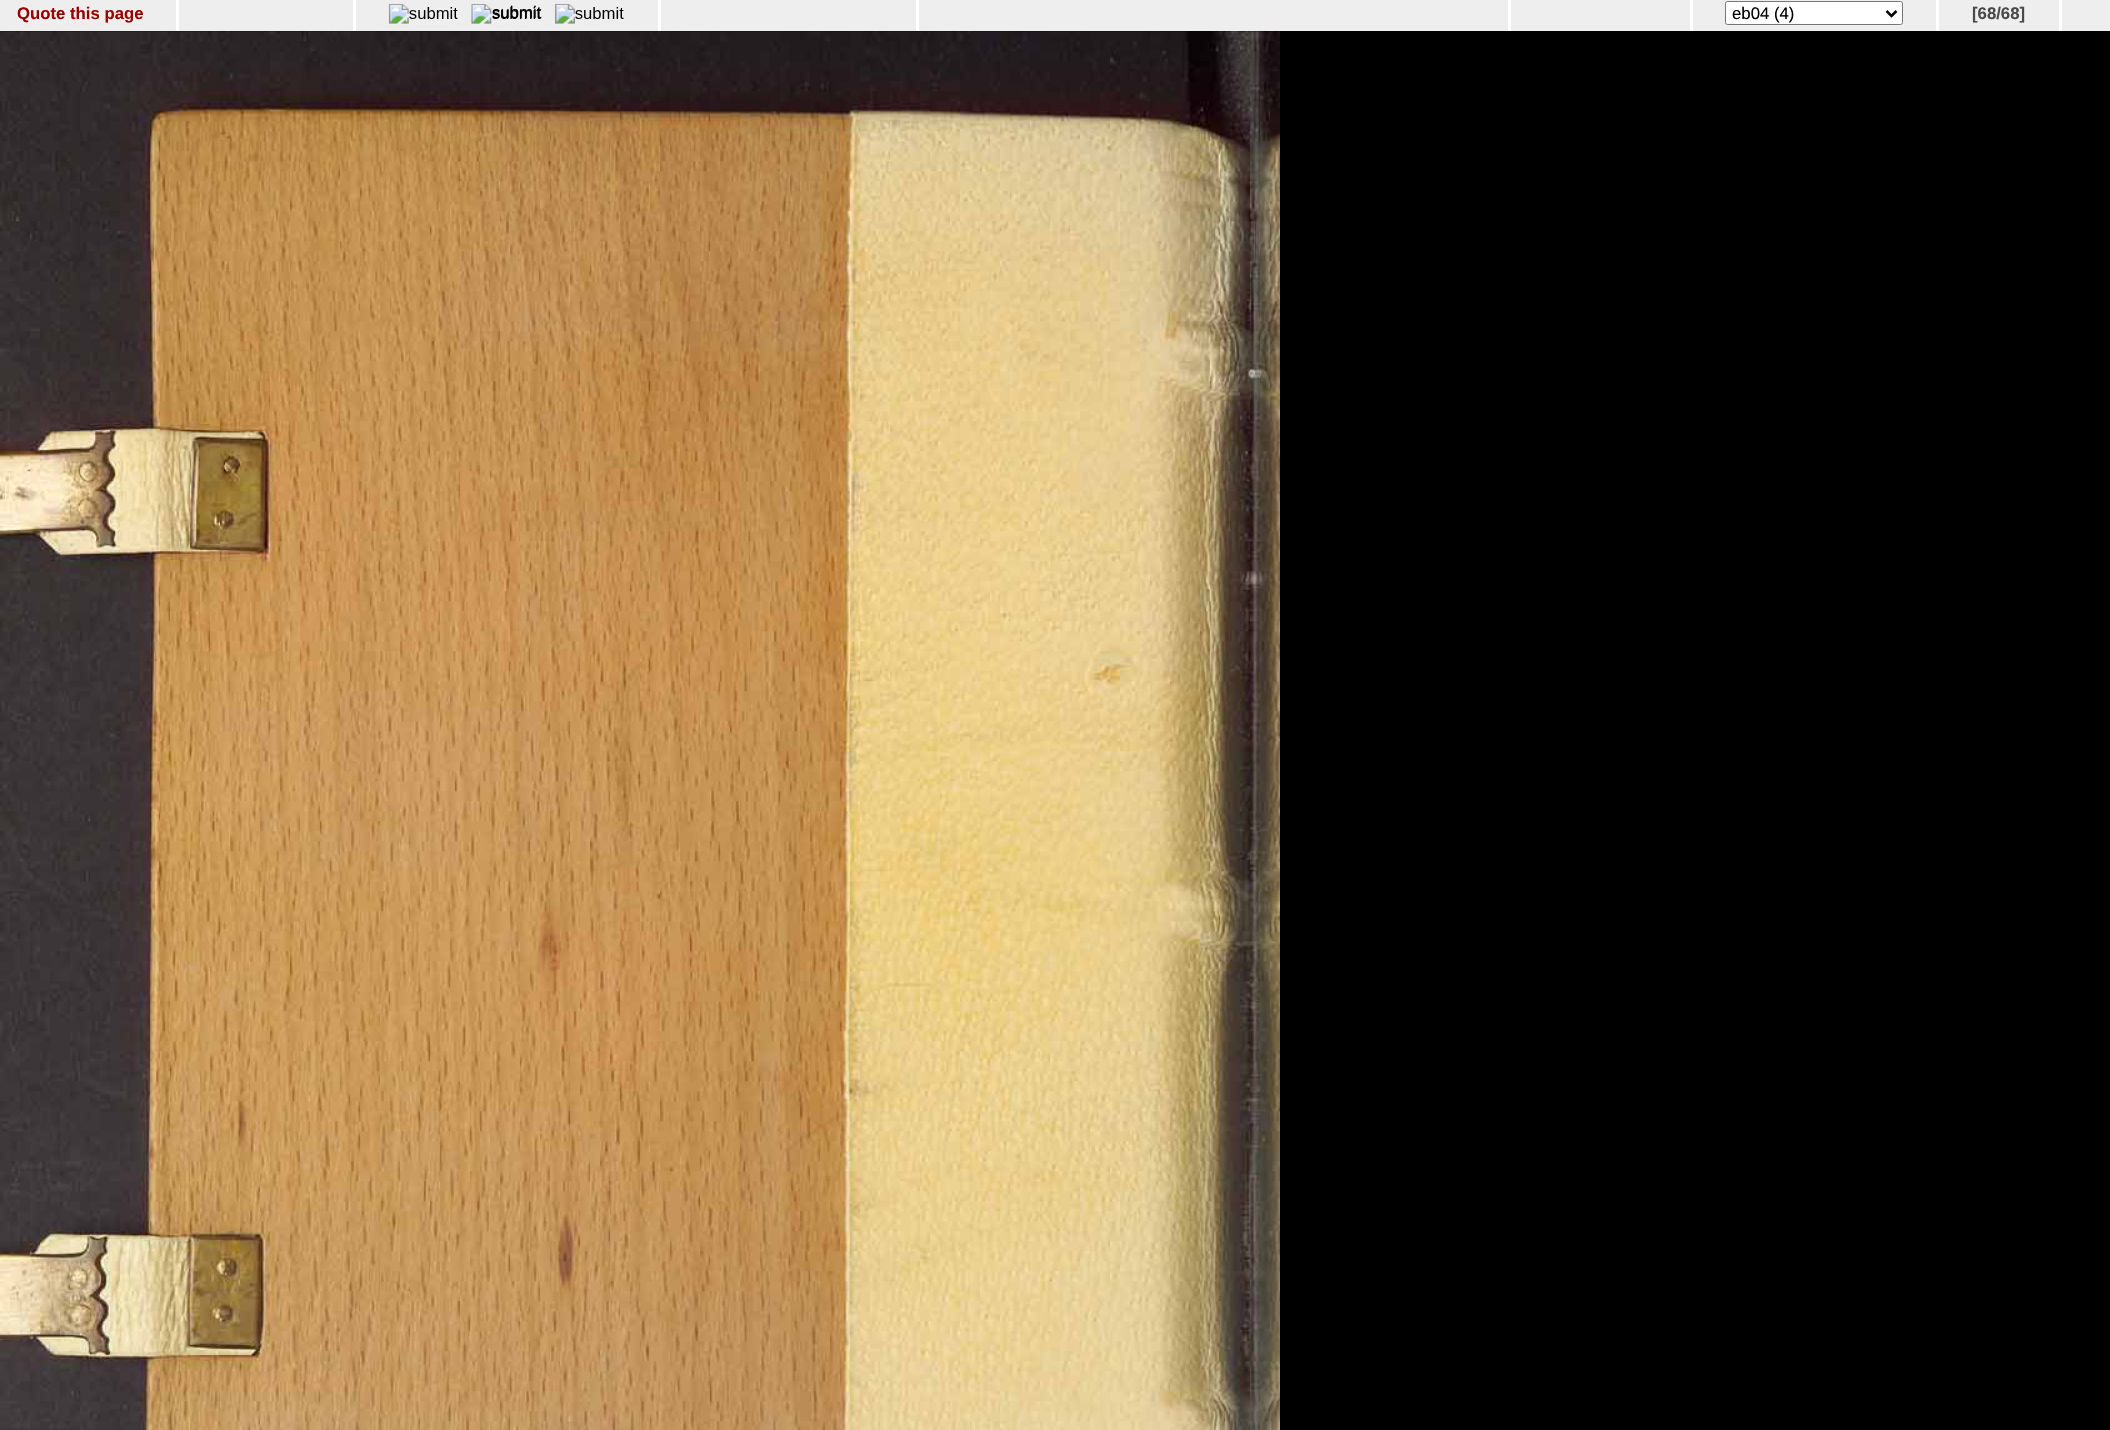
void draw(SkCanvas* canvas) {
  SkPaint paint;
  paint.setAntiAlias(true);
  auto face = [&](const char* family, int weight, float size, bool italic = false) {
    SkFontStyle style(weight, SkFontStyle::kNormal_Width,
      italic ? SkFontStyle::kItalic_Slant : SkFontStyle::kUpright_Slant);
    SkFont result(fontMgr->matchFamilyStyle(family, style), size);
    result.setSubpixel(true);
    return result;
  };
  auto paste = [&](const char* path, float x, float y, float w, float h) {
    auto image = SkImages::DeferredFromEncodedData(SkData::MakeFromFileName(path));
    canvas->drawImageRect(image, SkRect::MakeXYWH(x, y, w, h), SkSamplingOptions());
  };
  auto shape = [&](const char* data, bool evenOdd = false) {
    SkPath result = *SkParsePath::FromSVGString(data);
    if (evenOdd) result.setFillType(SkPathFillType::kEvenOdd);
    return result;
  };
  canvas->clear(0xffeeeeee);
  {
    const struct { float x, y, w, h; SkColor color; } items[] = {
      {176, 0, 3, 31, 0xffffffff},
      {353, 0, 3, 31, 0xffffffff},
      {658, 0, 3, 31, 0xffffffff},
    };
    for (auto [x, y, w, h, color] : items) {
      paint.setColor(color);
      canvas->drawRect(SkRect::MakeXYWH(x, y, w, h), paint);
    }
  }
  paste("img/1.png", 388, 3, 70, 21);
  paste("img/2.png", 471, 3, 70, 21);
  paste("img/3.png", 555, 3, 69, 21);
  {
    const struct { float x, y, w, h; SkColor color; } items[] = {
      {916, 0, 3, 31, 0xffffffff},
      {1508, 0, 3, 31, 0xffffffff},
      {1690, 0, 3, 31, 0xffffffff},
      {1936, 0, 3, 31, 0xffffffff},
    };
    for (auto [x, y, w, h, color] : items) {
      paint.setColor(color);
      canvas->drawRect(SkRect::MakeXYWH(x, y, w, h), paint);
    }
  }
  canvas->drawRoundRect(SkRect::MakeXYWH(1725.5f, 1.5f, 177, 23), 2, 2, paint);
  paint.setStroke(true);
  paint.setStrokeWidth(1);
  paint.setColor(0xff767676);
  canvas->drawRoundRect(SkRect::MakeXYWH(1725.5f, 1.5f, 177, 23), 2, 2, paint);
  paint.setStrokeWidth(2.5f);
  paint.setColor(0xff000000);
  canvas->drawPath(shape("M1886.5 11L1891.5 16L1896.5 11"), paint);
  paint.setStroke(false);
  paint.setColor(0xffffffff);
  canvas->drawRect(SkRect::MakeXYWH(2059, 0, 3, 31), paint);
  paint.setColor(0xff000000);
  canvas->drawRect(SkRect::MakeXYWH(0, 31, 2110, 1399), paint);
  paste("img/4.png", 0, 31, 1280, 1399);
  auto f0 = face("Liberation Sans", 700, 16.75f);
  paint.setColor(0xff990000);
  canvas->drawString("Quote this page", 17, 19, f0, paint);
  auto f1 = face("Liberation Sans", 400, 16.75f);
  paint.setColor(0xff000000);
  canvas->drawString("submit", 492, 18, f1, paint);
  canvas->drawString("eb04 (4)", 1732, 19, f1, paint);
  paint.setColor(0xff4a494a);
  canvas->drawString("[68/68]", 1972, 19, f0, paint);
}
